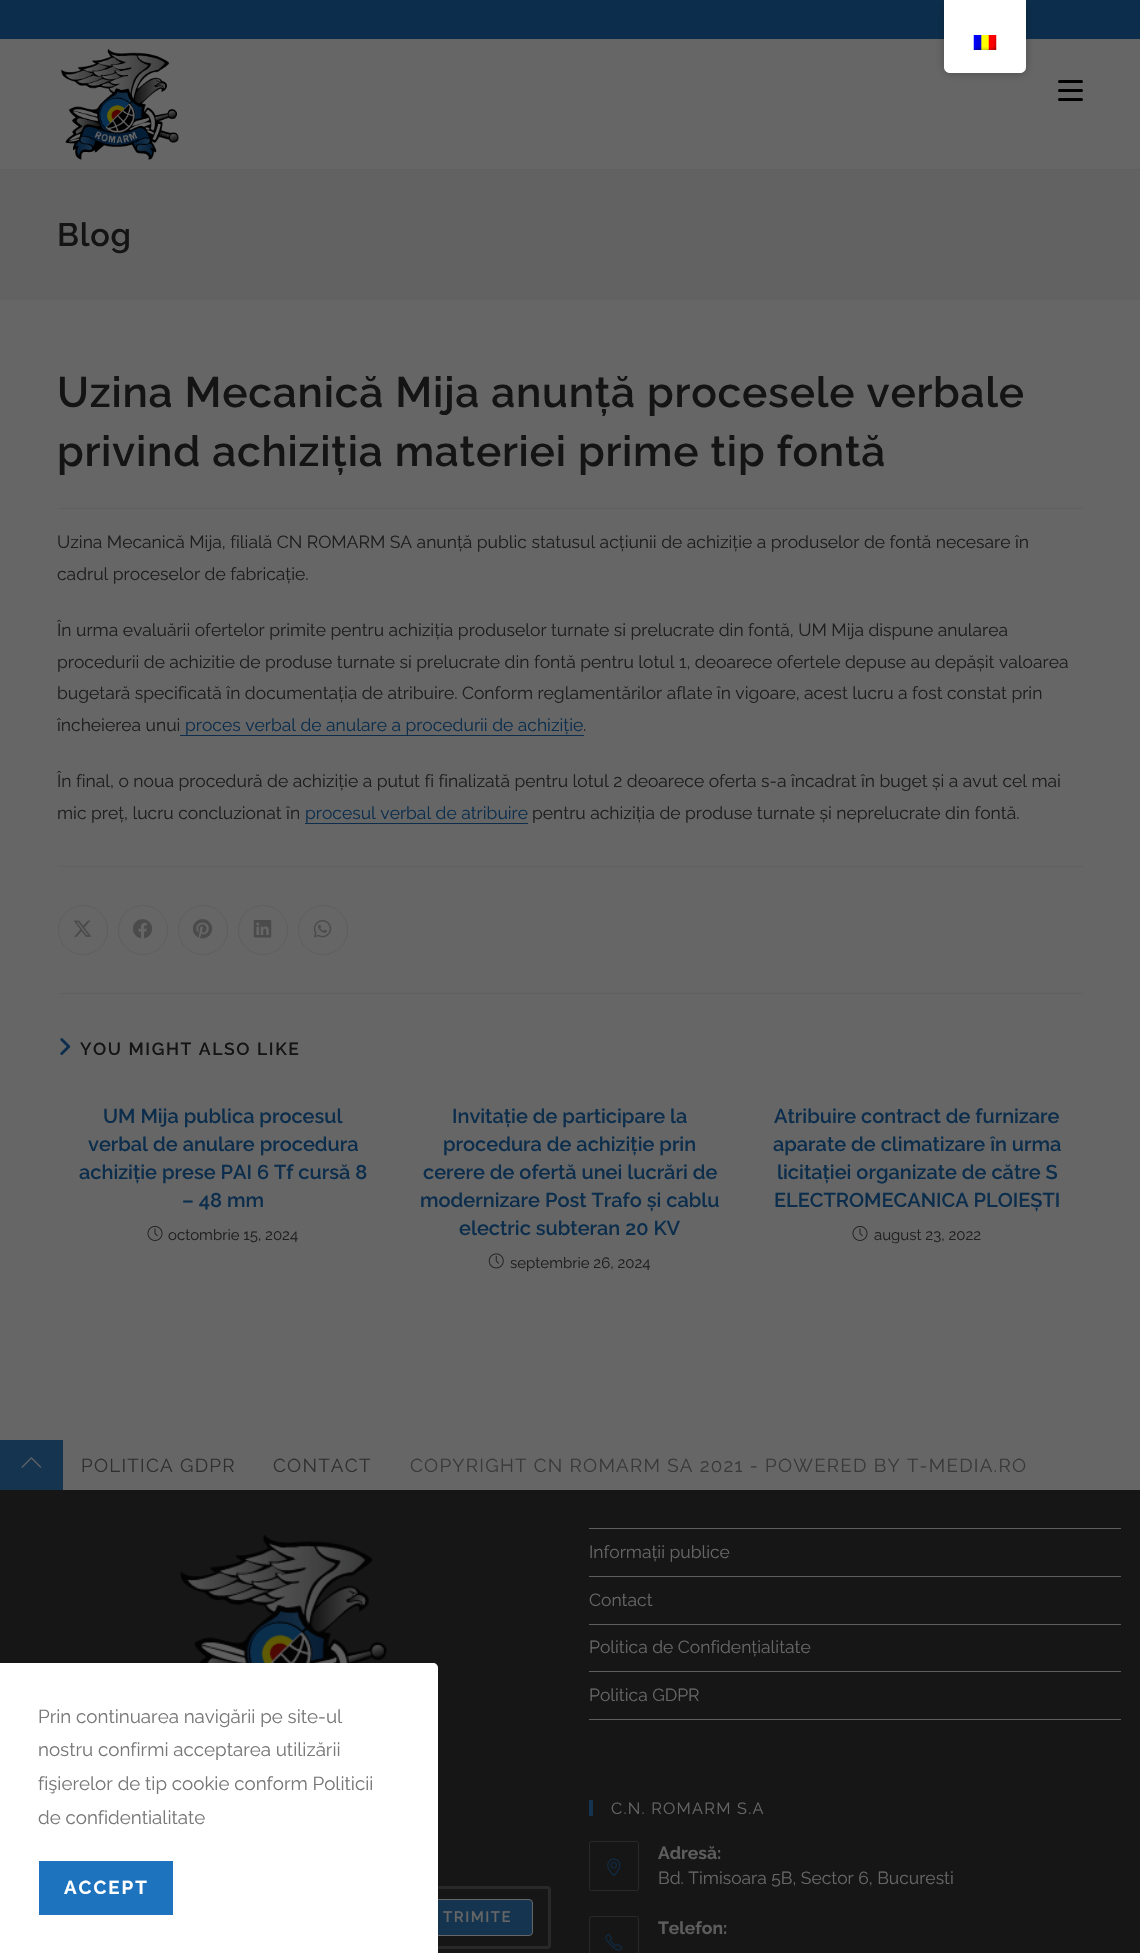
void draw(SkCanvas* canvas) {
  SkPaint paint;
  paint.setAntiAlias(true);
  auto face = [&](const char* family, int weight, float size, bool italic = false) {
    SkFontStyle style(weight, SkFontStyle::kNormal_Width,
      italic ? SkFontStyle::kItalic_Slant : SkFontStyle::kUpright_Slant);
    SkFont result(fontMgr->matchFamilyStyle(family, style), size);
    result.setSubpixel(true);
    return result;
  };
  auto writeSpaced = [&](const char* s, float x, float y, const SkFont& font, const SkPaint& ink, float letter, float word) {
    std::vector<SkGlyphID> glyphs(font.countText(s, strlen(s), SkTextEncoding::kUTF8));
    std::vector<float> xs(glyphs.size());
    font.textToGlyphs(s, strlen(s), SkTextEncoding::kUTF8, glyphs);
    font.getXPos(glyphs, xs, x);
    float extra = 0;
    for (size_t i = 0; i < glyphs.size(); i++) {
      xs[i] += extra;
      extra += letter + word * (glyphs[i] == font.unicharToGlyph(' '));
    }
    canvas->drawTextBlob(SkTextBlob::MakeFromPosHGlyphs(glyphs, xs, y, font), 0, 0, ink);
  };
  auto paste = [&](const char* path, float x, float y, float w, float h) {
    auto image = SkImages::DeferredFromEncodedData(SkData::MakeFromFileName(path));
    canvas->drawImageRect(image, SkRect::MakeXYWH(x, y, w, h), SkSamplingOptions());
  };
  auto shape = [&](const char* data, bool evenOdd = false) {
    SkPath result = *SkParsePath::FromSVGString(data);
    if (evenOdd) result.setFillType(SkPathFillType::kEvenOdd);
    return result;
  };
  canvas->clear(0xff666666);
  paint.setColor(0xff0c2e4c);
  canvas->drawRect(SkRect::MakeXYWH(0, 0, 1140, 39), paint);
  paint.setColor(0x40000000);
  paint.setMaskFilter(SkMaskFilter::MakeBlur(kNormal_SkBlurStyle, 5));
  canvas->drawRoundRect(SkRect::MakeXYWH(944, 0, 82, 73), 6, 6, paint);
  paint.setMaskFilter(nullptr);
  paint.setColor(0xffffffff);
  canvas->drawPath(shape("M944 0H1026V67C1026 70.5 1023.5 73 1020 73H950C946.5 73 944 70.5 944 67Z"), paint);
  paste("img/1.png", 973, 35, 24, 15);
  paint.setColor(0xff606060);
  canvas->drawRect(SkRect::MakeXYWH(0, 169, 1140, 1), paint);
  paste("img/2.png", 61, 49, 118, 111);
  paint.setColor(0xff000000);
  canvas->drawRoundRect(SkRect::MakeXYWH(1058, 89, 25, 3), 1.5f, 1.5f, paint);
  canvas->drawRoundRect(SkRect::MakeXYWH(1058, 80, 25, 3), 1.5f, 1.5f, paint);
  canvas->drawRoundRect(SkRect::MakeXYWH(1058, 98, 25, 3), 1.5f, 1.5f, paint);
  {
    const struct { float x, y, w, h; SkColor color; } items[] = {
      {0, 170, 1140, 130, 0xff626262},
      {58, 508, 1025, 1, 0xff606060},
      {180, 735, 404, 1, 0xff0c2e4c},
      {305, 823, 223, 1, 0xff0c2e4c},
      {58, 866, 1025, 1, 0xff606060},
    };
    for (auto [x, y, w, h, color] : items) {
      paint.setColor(color);
      canvas->drawRect(SkRect::MakeXYWH(x, y, w, h), paint);
    }
  }
  paint.setStroke(true);
  paint.setStrokeWidth(1);
  paint.setColor(0xff5d5d5d);
  canvas->drawCircle(83, 930, 24.5f, paint);
  paste("img/3.png", 73, 920, 19, 17);
  canvas->drawCircle(143, 930, 24.5f, paint);
  paste("img/4.png", 133, 919, 20, 20);
  canvas->drawCircle(203, 930, 24.5f, paint);
  paste("img/5.png", 193, 919, 20, 20);
  canvas->drawCircle(263, 930, 24.5f, paint);
  paste("img/6.png", 253, 920, 19, 18);
  canvas->drawCircle(323, 930, 24.5f, paint);
  paste("img/7.png", 313, 920, 19, 18);
  paint.setStroke(false);
  paint.setColor(0xff606060);
  canvas->drawRect(SkRect::MakeXYWH(58, 993, 1025, 1), paint);
  paste("img/8.png", 60, 1038, 11, 17);
  paste("img/9.png", 147, 1226, 16, 15);
  paste("img/10.png", 488, 1253, 16, 16);
  paste("img/9.png", 852, 1226, 16, 15);
  paint.setColor(0xff15344f);
  canvas->drawRect(SkRect::MakeXYWH(0, 1440, 63, 50), paint);
  paste("img/11.png", 21, 1457, 21, 11);
  paint.setColor(0xff161616);
  canvas->drawRect(SkRect::MakeXYWH(0, 1490, 1140, 463), paint);
  paste("img/12.png", 180, 1535, 207, 128);
  {
    const struct { float x, y, w, h; SkColor color; } items[] = {
      {589, 1528, 532, 1, 0xff5e5e5e},
      {589, 1576, 532, 1, 0xff5e5e5e},
      {589, 1624, 532, 1, 0xff5e5e5e},
      {589, 1671, 532, 1, 0xff5e5e5e},
      {589, 1719, 532, 1, 0xff5e5e5e},
    };
    for (auto [x, y, w, h, color] : items) {
      paint.setColor(color);
      canvas->drawRect(SkRect::MakeXYWH(x, y, w, h), paint);
    }
  }
  paint.setStroke(true);
  paint.setStrokeWidth(3);
  paint.setColor(0xff292929);
  canvas->drawRoundRect(SkRect::MakeXYWH(20.5f, 1887.5f, 529, 60), 2.5f, 2.5f, paint);
  paint.setStroke(false);
  paint.setColor(0xff15344f);
  canvas->drawRoundRect(SkRect::MakeXYWH(424.5f, 1899.5f, 108, 36), 3.5f, 3.5f, paint);
  paint.setStroke(true);
  paint.setStrokeWidth(1);
  paint.setColor(0xff666666);
  canvas->drawRoundRect(SkRect::MakeXYWH(424.5f, 1899.5f, 108, 36), 3.5f, 3.5f, paint);
  paint.setStroke(false);
  paint.setColor(0xff15344f);
  canvas->drawRect(SkRect::MakeXYWH(589, 1800, 4, 16), paint);
  paint.setStroke(true);
  paint.setColor(0xff292929);
  canvas->drawRoundRect(SkRect::MakeXYWH(589.5f, 1841.5f, 49, 49), 2, 2, paint);
  paste("img/13.png", 607, 1858, 14, 18);
  canvas->drawRoundRect(SkRect::MakeXYWH(589.5f, 1916.5f, 49, 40), 2, 2, paint);
  paste("img/14.png", 605, 1933, 18, 18);
  paint.setStroke(false);
  paint.setColor(0xffffffff);
  canvas->drawPath(shape("M0 1663H433C436 1663 438 1665 438 1668V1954H0Z"), paint);
  paint.setColor(0xff1e73be);
  canvas->drawRect(SkRect::MakeXYWH(39, 1861, 134, 54), paint);
  auto f0 = face("Raleway", 600, 32.5f);
  paint.setColor(0xff141414);
  writeSpaced("Blog", 57, 246, f0, paint, 0.75f, 0);
  auto f1 = face("Raleway", 600, 42.5f);
  writeSpaced("Uzina Mecanică Mija anunță procesele verbale", 57, 407, f1, paint, 0.75f, 0);
  writeSpaced("privind achiziția materiei prime tip fontă", 57, 466, f1, paint, 0.75f, 0);
  auto f2 = face("Raleway", 400, 17.5f);
  paint.setColor(0xff1e1e1e);
  {
    const struct { const char* s; float x, y; } items[] = {
      {"Uzina Mecanică Mija, filială CN ROMARM SA anunță public statusul acțiunii de achiziție a produselor de fontă necesare în", 57, 548},
      {"cadrul proceselor de fabricație.", 57, 580},
      {"În urma evaluării ofertelor primite pentru achiziția produselor turnate si prelucrate din fontă, UM Mija dispune anularea", 57, 636},
      {"procedurii de achizitie de produse turnate si prelucrate din fontă pentru lotul 1, deoarece ofertele depuse au depășit valoarea", 57, 668},
      {"bugetară specificată în documentația de atribuire. Conform reglamentărilor aflate în vigoare, acest lucru a fost constat prin", 57, 699},
      {"încheierea unui", 57, 731},
    };
    for (auto [s, x, y] : items) {
      canvas->drawString(s, x, y, f2, paint);
    }
  }
  paint.setColor(0xff0c2e4c);
  canvas->drawString("proces verbal de anulare a procedurii de achiziție", 185, 731, f2, paint);
  paint.setColor(0xff1e1e1e);
  {
    const struct { const char* s; float x, y; } items[] = {
      {".", 583, 731},
      {"În final, o noua procedură de achiziție a putut fi finalizată pentru lotul 2 deoarece oferta s-a încadrat în buget și a avut cel mai", 57, 787},
      {"mic preț, lucru concluzionat în", 57, 819},
    };
    for (auto [s, x, y] : items) {
      canvas->drawString(s, x, y, f2, paint);
    }
  }
  paint.setColor(0xff0c2e4c);
  canvas->drawString("procesul verbal de atribuire", 305, 819, f2, paint);
  paint.setColor(0xff1e1e1e);
  canvas->drawString("pentru achiziția de produse turnate și neprelucrate din fontă.", 532, 819, f2, paint);
  auto f3 = face("Raleway", 600, 17.5f);
  paint.setColor(0xff141414);
  writeSpaced("YOU MIGHT ALSO LIKE", 80, 1055, f3, paint, 1.6f, 0);
  auto f4 = face("Raleway", 600, 20);
  paint.setColor(0xff0c2e4c);
  {
    const struct { const char* s; float x, y; } items[] = {
      {"UM Mija publica procesul", 103, 1123},
      {"verbal de anulare procedura", 88, 1151},
      {"achiziție prese PAI 6 Tf cursă 8", 79, 1179},
      {"– 48 mm", 182, 1207},
    };
    for (auto [s, x, y] : items) {
      canvas->drawString(s, x, y, f4, paint);
    }
  }
  auto f5 = face("Raleway", 400, 15);
  paint.setColor(0xff1e1e1e);
  canvas->drawString("octombrie 15, 2024", 168, 1240, f5, paint);
  paint.setColor(0xff0c2e4c);
  {
    const struct { const char* s; float x, y; } items[] = {
      {"Invitație de participare la", 452, 1123},
      {"procedura de achiziție prin", 443, 1151},
      {"cerere de ofertă unei lucrări de", 423, 1179},
      {"modernizare Post Trafo și cablu", 420, 1207},
      {"electric subteran 20 KV", 459, 1235},
    };
    for (auto [s, x, y] : items) {
      canvas->drawString(s, x, y, f4, paint);
    }
  }
  paint.setColor(0xff1e1e1e);
  canvas->drawString("septembrie 26, 2024", 510, 1268, f5, paint);
  paint.setColor(0xff0c2e4c);
  {
    const struct { const char* s; float x, y; } items[] = {
      {"Atribuire contract de furnizare", 774, 1123},
      {"aparate de climatizare în urma", 773, 1151},
      {"licitației organizate de către S", 777, 1179},
      {"ELECTROMECANICA PLOIEȘTI", 774, 1207},
    };
    for (auto [s, x, y] : items) {
      canvas->drawString(s, x, y, f4, paint);
    }
  }
  paint.setColor(0xff1e1e1e);
  canvas->drawString("august 23, 2022", 874, 1240, f5, paint);
  auto f6 = face("Raleway", 400, 18.75f);
  paint.setColor(0xff2f2f2f);
  writeSpaced("POLITICA GDPR", 81, 1472, f6, paint, 1.25f, 0);
  writeSpaced("CONTACT", 273, 1472, f6, paint, 1.25f, 0);
  paint.setColor(0xff393939);
  writeSpaced("COPYRIGHT CN ROMARM SA 2021 - POWERED BY T-MEDIA.RO", 410, 1472, f6, paint, 1.25f, 0);
  paint.setColor(0xff666666);
  {
    const struct { const char* s; float x, y; } items[] = {
      {"Informații publice", 589, 1558},
      {"Contact", 589, 1606},
      {"Politica de Confidențialitate", 589, 1653},
      {"Politica GDPR", 589, 1701},
    };
    for (auto [s, x, y] : items) {
      canvas->drawString(s, x, y, f2, paint);
    }
  }
  auto f7 = face("Raleway", 600, 15);
  writeSpaced("TRIMITE", 443, 1922, f7, paint, 1.5f, 0);
  auto f8 = face("Raleway", 400, 16.25f);
  writeSpaced("C.N. ROMARM S.A", 611, 1814, f8, paint, 1.25f, 0);
  auto f9 = face("Raleway", 700, 17.5f);
  paint.setColor(0xff5d5d5d);
  canvas->drawString("Adresă:", 658, 1859, f9, paint);
  paint.setColor(0xff666666);
  canvas->drawString("Bd. Timisoara 5B, Sector 6, Bucuresti", 658, 1884, f2, paint);
  paint.setColor(0xff5d5d5d);
  canvas->drawString("Telefon:", 658, 1934, f9, paint);
  paint.setColor(0xff777777);
  {
    const struct { const char* s; float x, y; } items[] = {
      {"Prin continuarea navigării pe site-ul", 38, 1723},
      {"nostru confirmi acceptarea utilizării", 38, 1756},
      {"fişierelor de tip cookie conform Politicii", 38, 1790},
      {"de confidentialitate", 38, 1824},
    };
    for (auto [s, x, y] : items) {
      canvas->drawString(s, x, y, f6, paint);
    }
  }
  auto f10 = face("Raleway", 700, 18.75f);
  paint.setColor(0xffffffff);
  writeSpaced("ACCEPT", 64, 1894, f10, paint, 2, 0);
}
